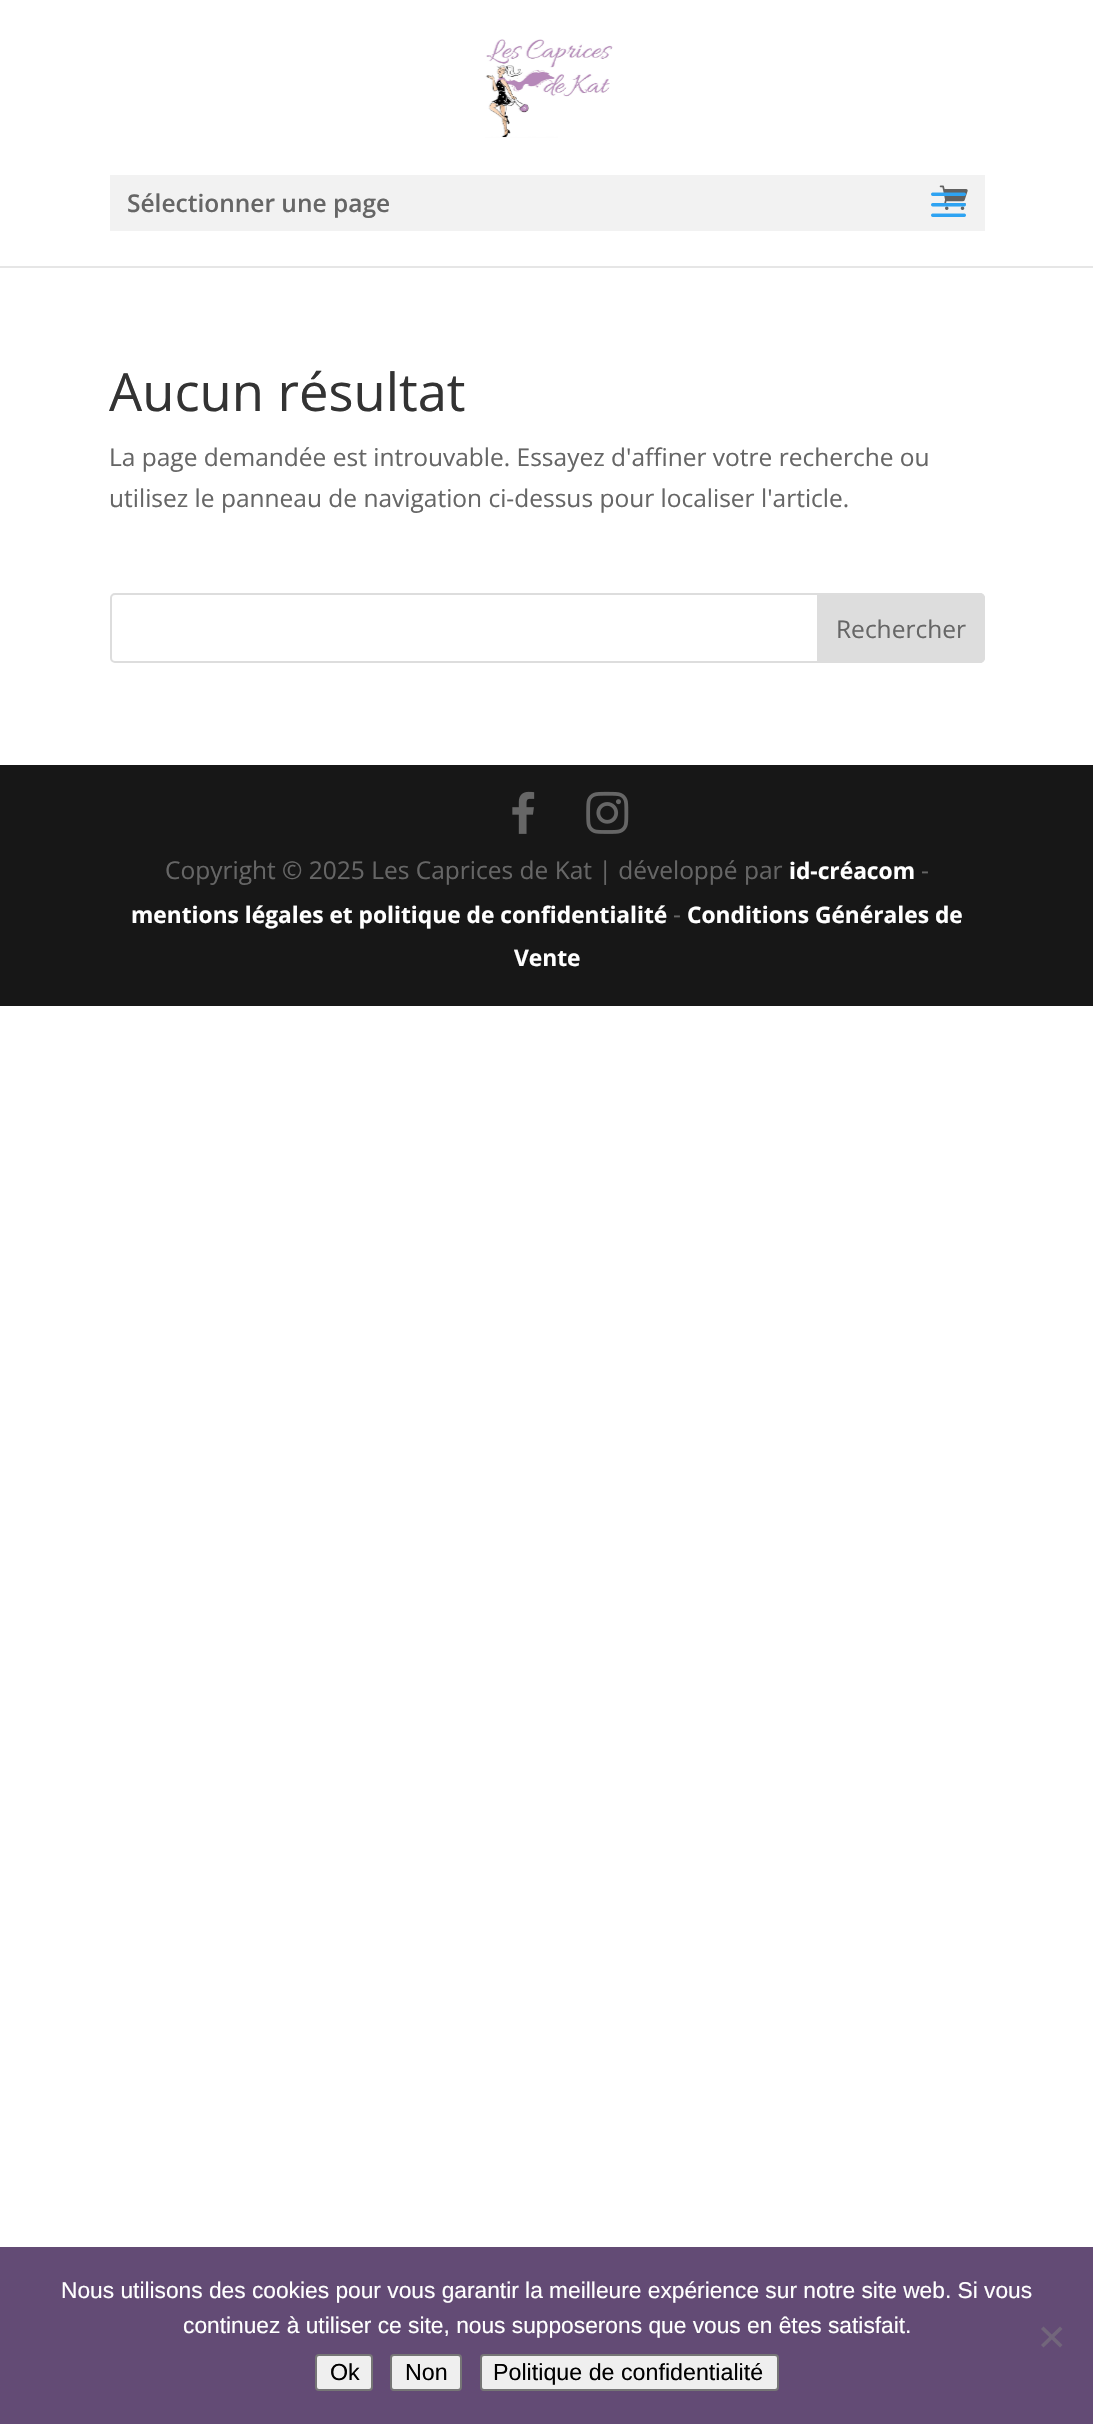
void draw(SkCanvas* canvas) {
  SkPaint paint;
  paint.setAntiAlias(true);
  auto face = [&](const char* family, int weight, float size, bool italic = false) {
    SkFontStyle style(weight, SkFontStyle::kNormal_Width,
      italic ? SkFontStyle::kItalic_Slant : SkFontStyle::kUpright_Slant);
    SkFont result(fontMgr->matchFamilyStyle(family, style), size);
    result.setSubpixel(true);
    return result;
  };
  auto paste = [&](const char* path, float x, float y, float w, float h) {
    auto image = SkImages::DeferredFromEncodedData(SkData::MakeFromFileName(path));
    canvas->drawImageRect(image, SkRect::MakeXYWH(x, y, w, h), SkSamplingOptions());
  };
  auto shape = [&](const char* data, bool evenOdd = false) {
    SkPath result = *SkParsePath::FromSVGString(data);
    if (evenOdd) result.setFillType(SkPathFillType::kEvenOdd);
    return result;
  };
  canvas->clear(0xffffffff);
  paint.setColor(0xffe6e6e6);
  canvas->drawPath(shape("M0 266V268H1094V2V266Z"), paint);
  paste("img/1.png", 485, 39, 128, 99);
  paste("img/3.png", 939, 185, 29, 25);
  paint.setColor(0x0d000000);
  canvas->drawRect(SkRect::MakeXYWH(110, 175, 875, 56), paint);
  paste("img/2.png", 931, 192, 35, 25);
  paint.setStroke(true);
  paint.setStrokeWidth(2);
  paint.setColor(0xffdddddd);
  canvas->drawRoundRect(SkRect::MakeXYWH(111, 594, 873, 68), 4, 4, paint);
  paint.setStroke(false);
  canvas->drawPath(shape("M818 594H980C982 594 984 596 984 598V658C984 660 982 662 980 662H818Z"), paint);
  paint.setStroke(true);
  canvas->drawPath(shape("M818 594H980C982 594 984 596 984 598V658C984 660 982 662 980 662H818Z"), paint);
  paint.setStroke(false);
  paint.setColor(0xff171717);
  canvas->drawRect(SkRect::MakeXYWH(0, 765, 1093, 241), paint);
  paste("img/4.png", 512, 791, 23, 43);
  paste("img/5.png", 586, 791, 43, 43);
  paint.setColor(0xff634b75);
  canvas->drawRect(SkRect::MakeXYWH(0, 2247, 1093, 177), paint);
  paint.setColor(0xff72667b);
  canvas->drawPath(shape("M1060 2326.5L1062.5 2329L1043.5 2347.5L1041 2345Z"), paint);
  canvas->drawPath(shape("M1041 2329L1043.5 2326.5L1062.5 2345L1060 2347.5Z"), paint);
  paint.setColor(0xffefefef);
  canvas->drawRoundRect(SkRect::MakeXYWH(316, 2355, 56, 35), 3, 3, paint);
  paint.setStroke(true);
  paint.setColor(0xff767676);
  canvas->drawRoundRect(SkRect::MakeXYWH(316, 2355, 56, 35), 3, 3, paint);
  paint.setStroke(false);
  paint.setColor(0xffefefef);
  canvas->drawRoundRect(SkRect::MakeXYWH(391, 2355, 70, 35), 3, 3, paint);
  paint.setStroke(true);
  paint.setColor(0xff767676);
  canvas->drawRoundRect(SkRect::MakeXYWH(391, 2355, 70, 35), 3, 3, paint);
  paint.setStroke(false);
  paint.setColor(0xffefefef);
  canvas->drawRoundRect(SkRect::MakeXYWH(481, 2355, 297, 35), 3, 3, paint);
  paint.setStroke(true);
  paint.setColor(0xff767676);
  canvas->drawRoundRect(SkRect::MakeXYWH(481, 2355, 297, 35), 3, 3, paint);
  auto f0 = face("Open Sans", 600, 24.5f);
  paint.setStroke(false);
  paint.setColor(0xff666666);
  canvas->drawString("Sélectionner une page", 127, 212, f0, paint);
  auto f1 = face("Open Sans", 400, 52.5f);
  paint.setColor(0xff333333);
  canvas->drawString("Aucun résultat", 109, 411, f1, paint);
  auto f2 = face("Open Sans", 400, 24.5f);
  paint.setColor(0xff666666);
  {
    const struct { const char* s; float x, y; } items[] = {
      {"La page demandée est introuvable. Essayez d'affiner votre recherche ou", 109, 466},
      {"utilisez le panneau de navigation ci-dessus pour localiser l'article.", 109, 507},
      {"Rechercher", 836, 638},
      {"Copyright © 2025 Les Caprices de Kat | développé par", 165, 879},
    };
    for (auto [s, x, y] : items) {
      canvas->drawString(s, x, y, f2, paint);
    }
  }
  auto f3 = face("Open Sans", 700, 22.75f);
  paint.setColor(0xffffffff);
  canvas->drawString("id-créacom", 789, 879, f3, paint);
  paint.setColor(0xff666666);
  canvas->drawString("-", 921, 879, f2, paint);
  paint.setColor(0xffffffff);
  canvas->drawString("mentions légales et politique de confidentialité", 131, 923, f3, paint);
  paint.setColor(0xff666666);
  canvas->drawString("-", 673, 923, f2, paint);
  paint.setColor(0xffffffff);
  canvas->drawString("Conditions Générales de", 687, 923, f3, paint);
  canvas->drawString("Vente", 514, 966, f3, paint);
  auto f4 = face("Liberation Sans", 400, 22.75f);
  canvas->drawString("Nous utilisons des cookies pour vous garantir la meilleure expérience sur notre site web. Si vous", 61, 2298, f4, paint);
  canvas->drawString("continuez à utiliser ce site, nous supposerons que vous en êtes satisfait.", 183, 2333, f4, paint);
  auto f5 = face("Liberation Sans", 400, 23.25f);
  paint.setColor(0xff000000);
  {
    const struct { const char* s; float x, y; } items[] = {
      {"Ok", 330, 2380},
      {"Non", 405, 2380},
      {"Politique de confidentialité", 493, 2380},
    };
    for (auto [s, x, y] : items) {
      canvas->drawString(s, x, y, f5, paint);
    }
  }
}
